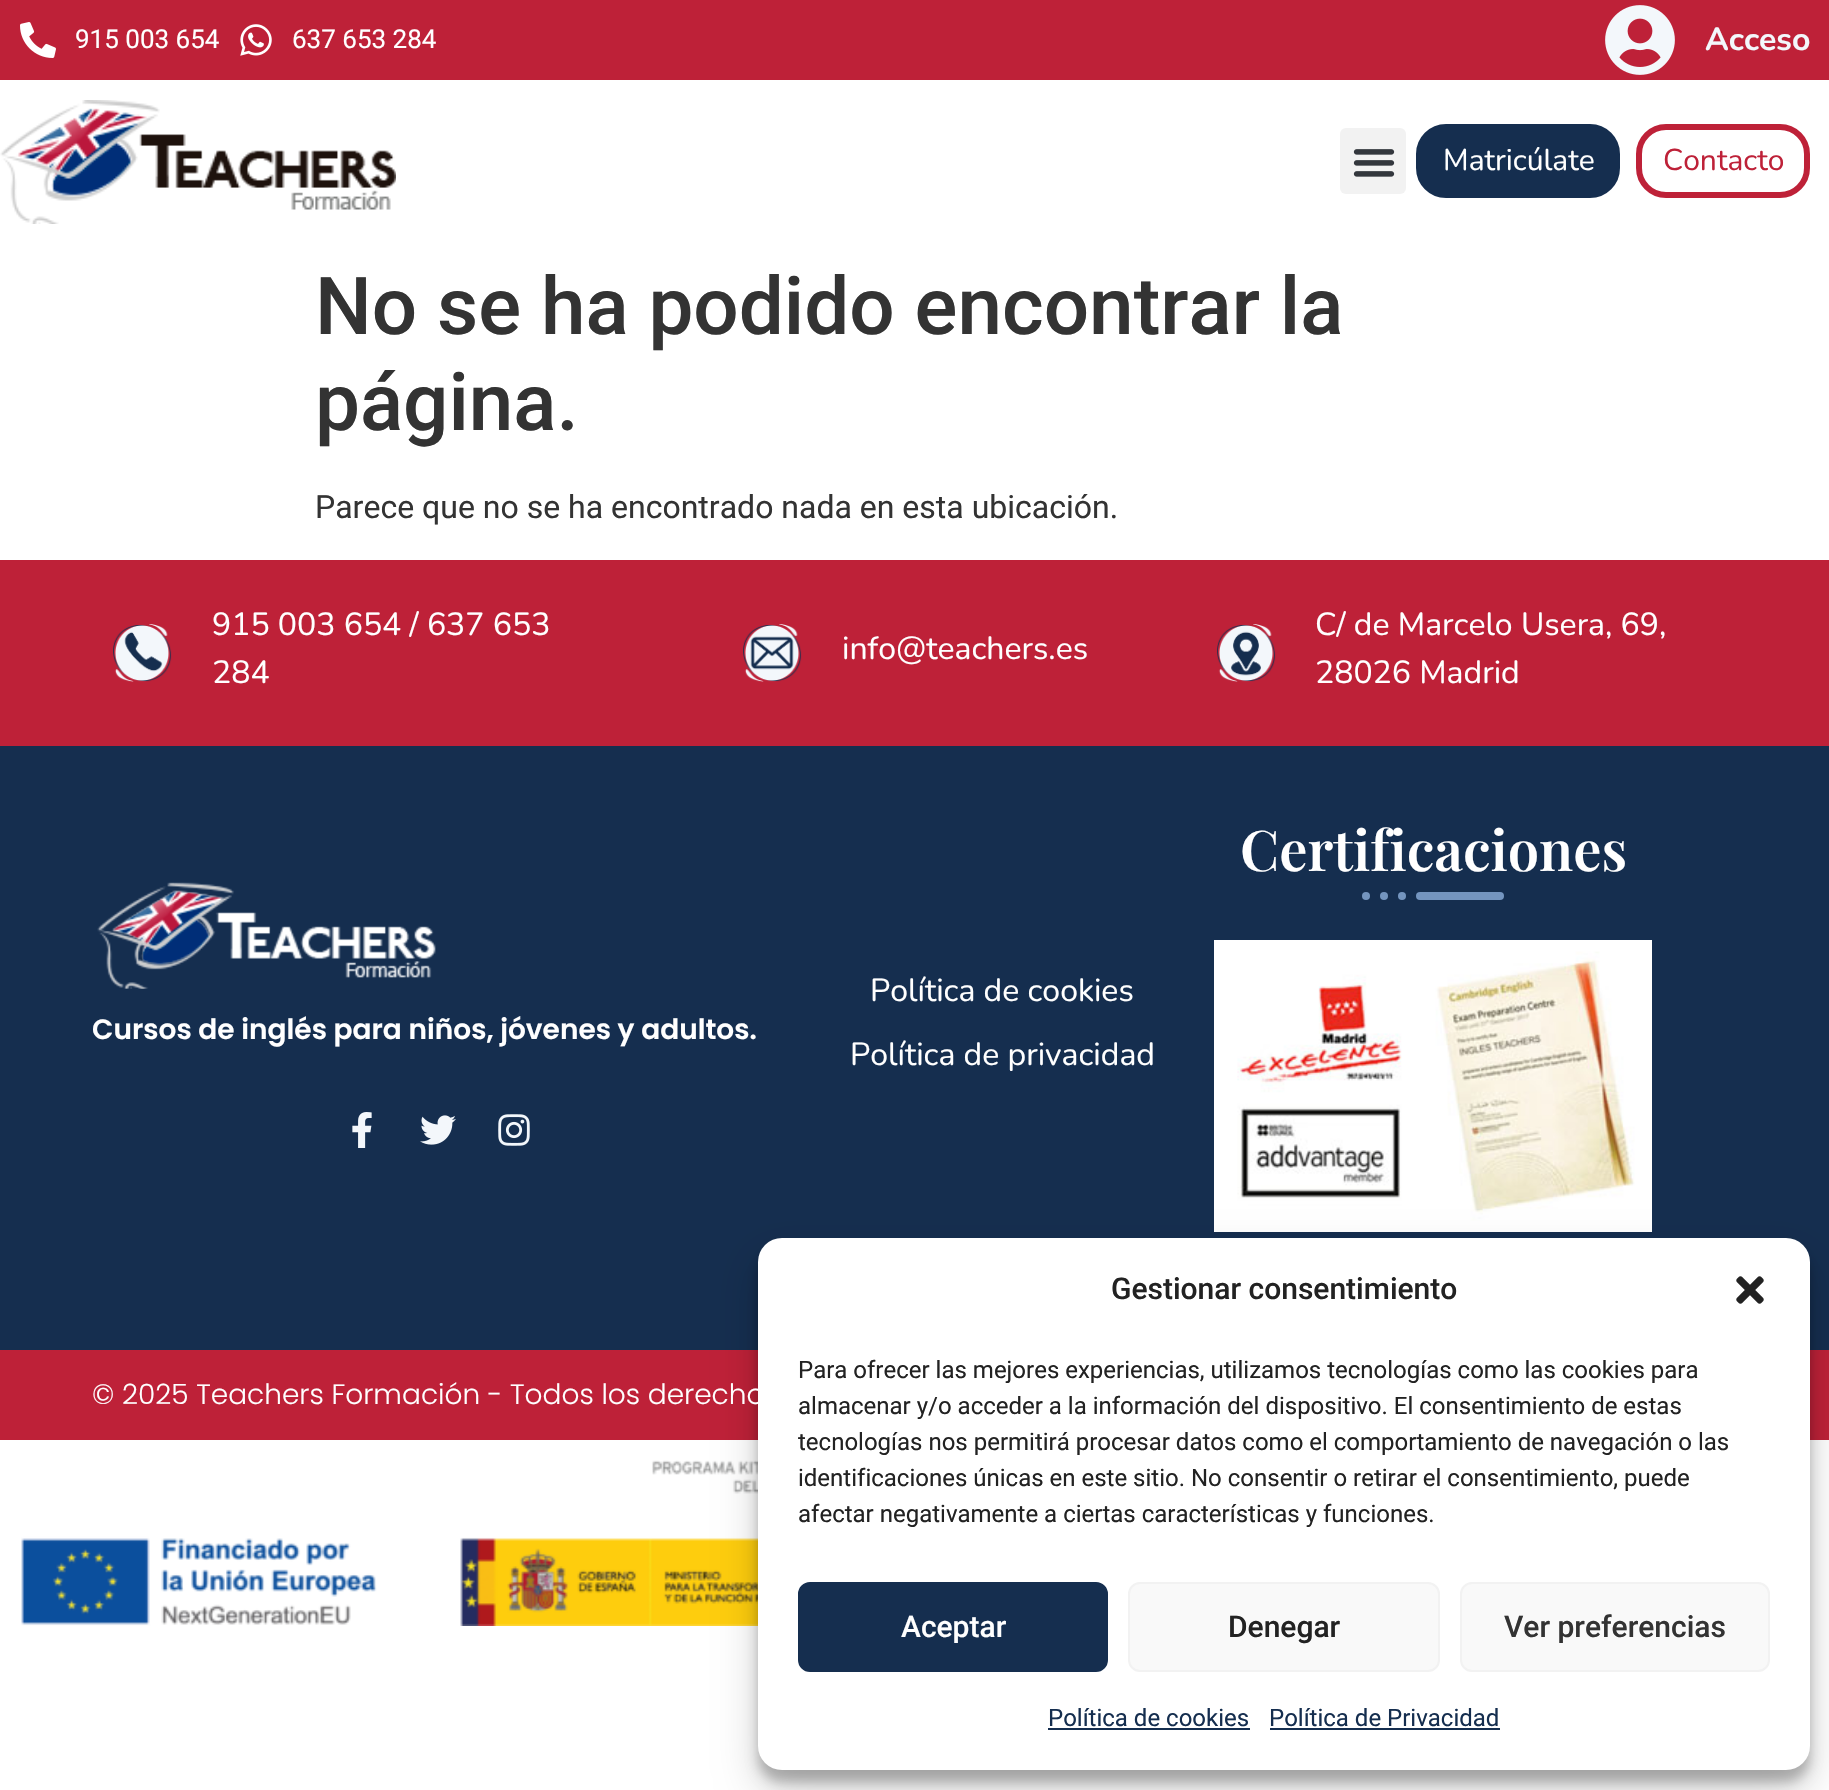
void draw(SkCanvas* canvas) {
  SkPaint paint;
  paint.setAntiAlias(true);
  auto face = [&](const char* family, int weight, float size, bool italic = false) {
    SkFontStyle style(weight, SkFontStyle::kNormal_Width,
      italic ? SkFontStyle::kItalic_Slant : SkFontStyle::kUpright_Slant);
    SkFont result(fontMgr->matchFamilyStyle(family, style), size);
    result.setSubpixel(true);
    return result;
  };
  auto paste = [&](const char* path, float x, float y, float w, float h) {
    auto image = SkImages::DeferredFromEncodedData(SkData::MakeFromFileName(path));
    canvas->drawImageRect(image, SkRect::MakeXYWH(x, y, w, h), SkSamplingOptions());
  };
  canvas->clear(0xffffffff);
  paint.setColor(0xffbe2138);
  canvas->drawRect(SkRect::MakeXYWH(0, 0, 1829, 80), paint);
  paste("img/1.png", 20, 22, 36, 36);
  paste("img/2.png", 240, 24, 32, 32);
  paste("img/3.png", 1605, 5, 70, 70);
  paste("img/4.png", 0, 100, 396, 124);
  paint.setColor(0xfff2f2f2);
  canvas->drawRoundRect(SkRect::MakeXYWH(1340, 128, 66, 66), 6, 6, paint);
  paste("img/5.png", 1353, 149, 42, 28);
  paint.setColor(0xff152e4f);
  canvas->drawRoundRect(SkRect::MakeXYWH(1419, 127, 198, 68), 27, 27, paint);
  paint.setStroke(true);
  paint.setStrokeWidth(6);
  canvas->drawRoundRect(SkRect::MakeXYWH(1419, 127, 198, 68), 27, 27, paint);
  paint.setColor(0xffbe2138);
  canvas->drawRoundRect(SkRect::MakeXYWH(1639, 127, 168, 68), 27, 27, paint);
  paint.setStroke(false);
  canvas->drawRect(SkRect::MakeXYWH(0, 560, 1829, 186), paint);
  paste("img/6.png", 113, 624, 59, 58);
  paste("img/7.png", 743, 624, 59, 58);
  paste("img/8.png", 1217, 624, 59, 58);
  paint.setColor(0xff152e4f);
  canvas->drawRect(SkRect::MakeXYWH(0, 746, 1829, 604), paint);
  paste("img/9.png", 97, 882, 339, 107);
  paste("img/10.png", 352, 1112, 20, 36);
  paste("img/11.png", 420, 1115, 36, 30);
  paste("img/12.png", 498, 1114, 32, 32);
  paint.setColor(0xff7495bf);
  canvas->drawRoundRect(SkRect::MakeXYWH(1416, 892, 88, 8), 4, 4, paint);
  canvas->drawCircle(1402, 896, 4, paint);
  canvas->drawCircle(1384, 896, 4, paint);
  canvas->drawCircle(1366, 896, 4, paint);
  paste("img/13.png", 1214, 940, 438, 292);
  paint.setColor(0xffbe2138);
  canvas->drawRect(SkRect::MakeXYWH(0, 1350, 1829, 90), paint);
  paste("img/14.png", 21, 1460, 737, 166);
  paint.setColor(0x3b000000);
  paint.setMaskFilter(SkMaskFilter::MakeBlur(kNormal_SkBlurStyle, 6));
  canvas->drawRoundRect(SkRect::MakeXYWH(758, 1250, 1052, 532), 24, 24, paint);
  paint.setMaskFilter(nullptr);
  paint.setColor(0x30000000);
  paint.setMaskFilter(SkMaskFilter::MakeBlur(kNormal_SkBlurStyle, 20));
  canvas->drawRoundRect(SkRect::MakeXYWH(758, 1258, 1052, 532), 24, 24, paint);
  paint.setMaskFilter(nullptr);
  paint.setColor(0xffffffff);
  canvas->drawRoundRect(SkRect::MakeXYWH(758, 1238, 1052, 532), 24, 24, paint);
  paste("img/15.png", 1736, 1276, 28, 28);
  paint.setColor(0xff152e4f);
  canvas->drawRoundRect(SkRect::MakeXYWH(799, 1583, 308, 88), 11, 11, paint);
  paint.setStroke(true);
  paint.setStrokeWidth(2);
  canvas->drawRoundRect(SkRect::MakeXYWH(799, 1583, 308, 88), 11, 11, paint);
  paint.setStroke(false);
  paint.setColor(0xfff9f9f9);
  canvas->drawRoundRect(SkRect::MakeXYWH(1129, 1583, 310, 88), 11, 11, paint);
  paint.setStroke(true);
  paint.setColor(0xfff2f2f2);
  canvas->drawRoundRect(SkRect::MakeXYWH(1129, 1583, 310, 88), 11, 11, paint);
  paint.setStroke(false);
  paint.setColor(0xfff9f9f9);
  canvas->drawRoundRect(SkRect::MakeXYWH(1461, 1583, 308, 88), 11, 11, paint);
  paint.setStroke(true);
  paint.setColor(0xfff2f2f2);
  canvas->drawRoundRect(SkRect::MakeXYWH(1461, 1583, 308, 88), 11, 11, paint);
  paint.setStroke(false);
  paint.setColor(0xff152e4f);
  canvas->drawRect(SkRect::MakeXYWH(1048, 1728, 202, 2), paint);
  canvas->drawRect(SkRect::MakeXYWH(1270, 1728, 230, 2), paint);
  auto f0 = face("Roboto", 400, 26);
  paint.setColor(0xffffffff);
  canvas->drawString("915 003 654", 75, 48, f0, paint);
  canvas->drawString("637 653 284", 292, 48, f0, paint);
  auto f1 = face("Nunito", 700, 32);
  paint.setColor(0xfff3f7fb);
  canvas->drawString("Acceso", 1705, 50, f1, paint);
  auto f2 = face("Nunito", 400, 30);
  paint.setColor(0xffffffff);
  canvas->drawString("Matricúlate", 1443, 170, f2, paint);
  paint.setColor(0xffbe2138);
  canvas->drawString("Contacto", 1663, 170, f2, paint);
  auto f3 = face("Roboto", 500, 80);
  paint.setColor(0xff333333);
  canvas->drawString("No se ha podido encontrar la", 315, 334, f3, paint);
  canvas->drawString("página.", 315, 430, f3, paint);
  auto f4 = face("Roboto", 400, 32);
  canvas->drawString("Parece que no se ha encontrado nada en esta ubicación.", 315, 518, f4, paint);
  auto f5 = face("Nunito", 400, 32);
  paint.setColor(0xffffffff);
  {
    const struct { const char* s; float x, y; } items[] = {
      {"915 003 654 / 637 653", 212, 635},
      {"284", 212, 683},
      {"info@teachers.es", 842, 659},
      {"C/ de Marcelo Usera, 69,", 1315, 635},
      {"28026 Madrid", 1315, 683},
    };
    for (auto [s, x, y] : items) {
      canvas->drawString(s, x, y, f5, paint);
    }
  }
  auto f6 = face("Poppins", 600, 28);
  canvas->drawString("Cursos de inglés para niños, jóvenes y adultos.", 92, 1039, f6, paint);
  auto f7 = face("Playfair Display", 600, 56);
  canvas->drawString("Certificaciones", 1240, 871, f7, paint);
  canvas->drawString("Política de cookies", 870, 1001, f5, paint);
  canvas->drawString("Política de privacidad", 850, 1065, f5, paint);
  auto f8 = face("Poppins", 300, 28);
  canvas->drawString("© 2025 Teachers Formación - Todos los derecho", 92, 1404, f8, paint);
  auto f9 = face("Roboto", 500, 30);
  paint.setColor(0xff222222);
  canvas->drawString("Gestionar consentimiento", 1111, 1299, f9, paint);
  auto f10 = face("Roboto", 400, 24);
  {
    const struct { const char* s; float x, y; } items[] = {
      {"Para ofrecer las mejores experiencias, utilizamos tecnologías como las cookies para", 798, 1378},
      {"almacenar y/o acceder a la información del dispositivo. El consentimiento de estas", 798, 1414},
      {"tecnologías nos permitirá procesar datos como el comportamiento de navegación o las", 798, 1450},
      {"identificaciones únicas en este sitio. No consentir o retirar el consentimiento, puede", 798, 1486},
      {"afectar negativamente a ciertas características y funciones.", 798, 1522},
    };
    for (auto [s, x, y] : items) {
      canvas->drawString(s, x, y, f10, paint);
    }
  }
  paint.setColor(0xffffffff);
  canvas->drawString("Aceptar", 901, 1637, f9, paint);
  paint.setColor(0xff222222);
  canvas->drawString("Denegar", 1228, 1637, f9, paint);
  paint.setColor(0xff333333);
  canvas->drawString("Ver preferencias", 1504, 1637, f9, paint);
  paint.setColor(0xff152e4f);
  canvas->drawString("Política de cookies", 1048, 1726, f10, paint);
  canvas->drawString("Política de Privacidad", 1269, 1726, f10, paint);
}
